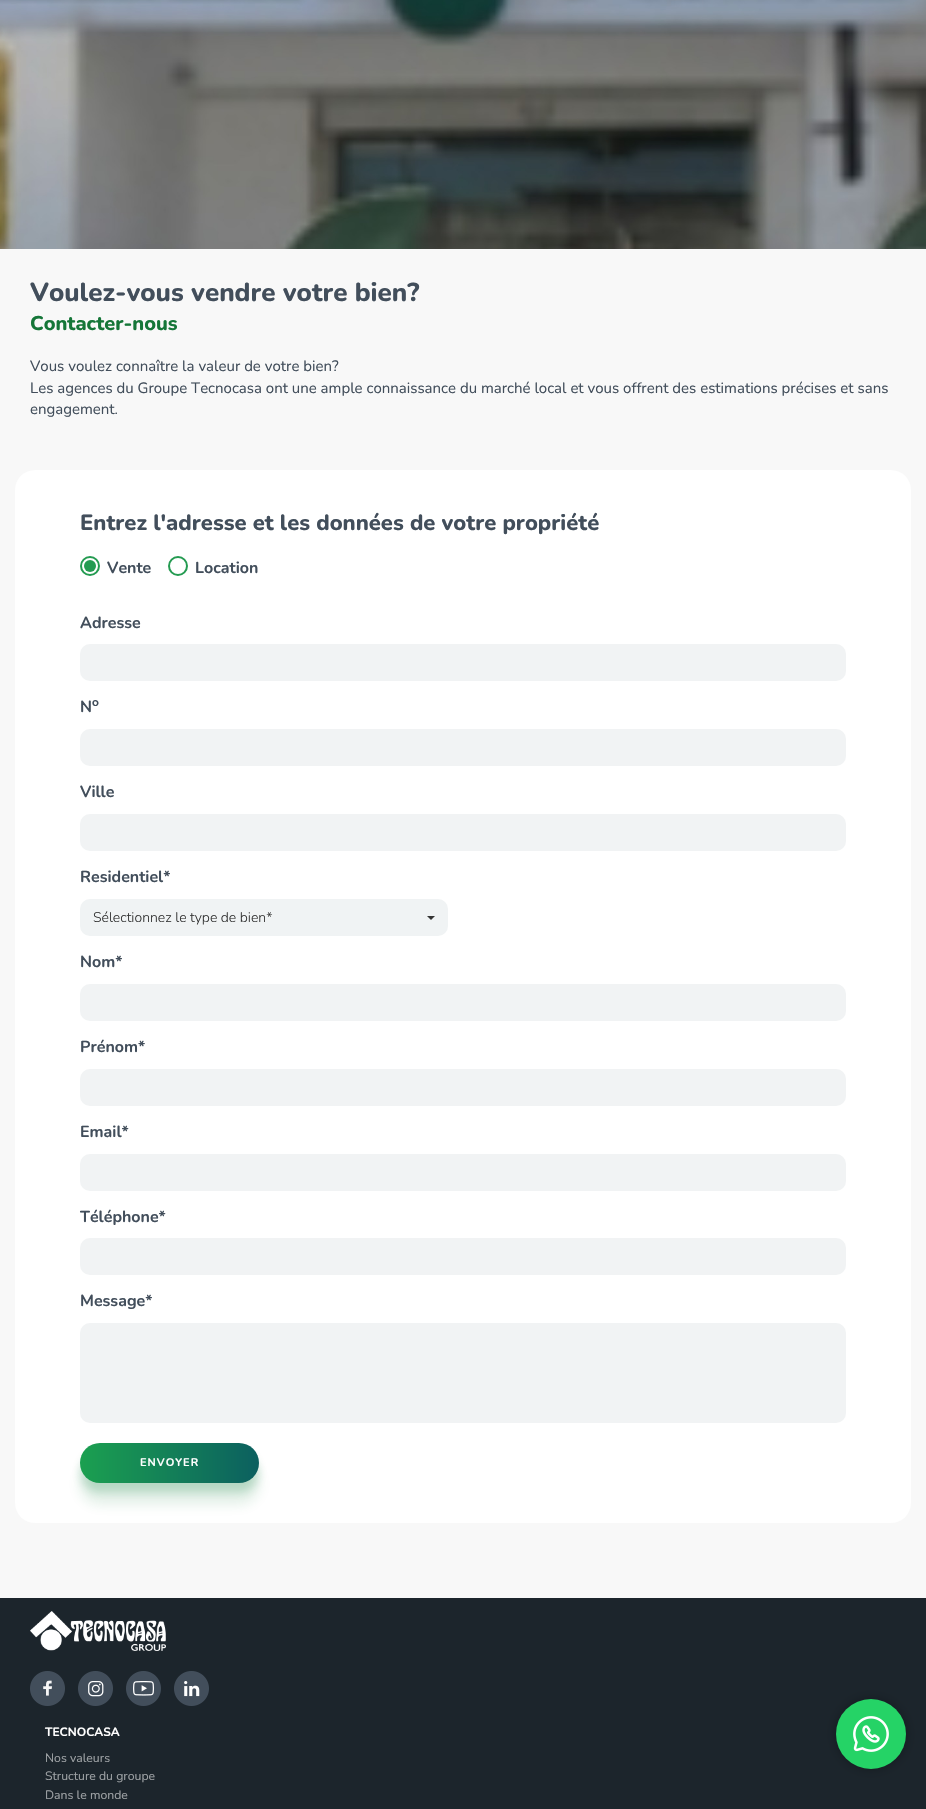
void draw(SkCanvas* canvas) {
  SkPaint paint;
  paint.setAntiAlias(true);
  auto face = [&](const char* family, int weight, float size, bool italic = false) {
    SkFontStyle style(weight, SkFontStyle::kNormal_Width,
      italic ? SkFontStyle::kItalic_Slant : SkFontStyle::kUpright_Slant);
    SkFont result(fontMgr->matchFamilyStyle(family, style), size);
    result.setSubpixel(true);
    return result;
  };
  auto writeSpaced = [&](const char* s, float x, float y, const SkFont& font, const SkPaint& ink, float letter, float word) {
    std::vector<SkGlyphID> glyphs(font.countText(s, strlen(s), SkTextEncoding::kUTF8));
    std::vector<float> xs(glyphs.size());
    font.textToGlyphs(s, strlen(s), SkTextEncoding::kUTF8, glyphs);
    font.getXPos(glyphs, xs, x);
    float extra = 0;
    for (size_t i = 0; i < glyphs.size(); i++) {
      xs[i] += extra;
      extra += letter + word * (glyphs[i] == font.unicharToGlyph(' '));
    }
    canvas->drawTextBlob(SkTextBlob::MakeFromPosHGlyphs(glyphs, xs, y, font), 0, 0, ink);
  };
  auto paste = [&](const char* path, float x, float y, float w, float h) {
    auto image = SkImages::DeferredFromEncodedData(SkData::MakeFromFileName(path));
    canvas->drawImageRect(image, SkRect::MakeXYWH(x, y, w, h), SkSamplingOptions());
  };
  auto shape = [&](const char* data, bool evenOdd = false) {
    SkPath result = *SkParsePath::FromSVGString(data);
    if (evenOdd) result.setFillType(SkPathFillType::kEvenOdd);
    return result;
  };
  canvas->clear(0xfff8f8f8);
  paste("img/1.png", 0, 0, 926, 249);
  paint.setColor(0xffffffff);
  canvas->drawRoundRect(SkRect::MakeXYWH(15, 470, 896, 1053), 20, 20, paint);
  paint.setStroke(true);
  paint.setStrokeWidth(2);
  paint.setColor(0xff249b51);
  canvas->drawCircle(90, 566, 9, paint);
  paint.setStroke(false);
  canvas->drawCircle(90, 566, 6, paint);
  paint.setStroke(true);
  canvas->drawCircle(178, 566, 9, paint);
  paint.setStroke(false);
  paint.setColor(0xfff1f3f4);
  canvas->drawRoundRect(SkRect::MakeXYWH(80, 644, 766, 37), 10, 10, paint);
  canvas->drawRoundRect(SkRect::MakeXYWH(80, 729, 766, 37), 10, 10, paint);
  canvas->drawRoundRect(SkRect::MakeXYWH(80, 814, 766, 37), 10, 10, paint);
  paint.setColor(0xfff0f3f4);
  canvas->drawRoundRect(SkRect::MakeXYWH(80, 899, 368, 37), 10, 10, paint);
  paint.setColor(0xff333333);
  canvas->drawPath(shape("M427 916H435L431 920Z"), paint);
  paint.setColor(0xfff1f3f4);
  canvas->drawRoundRect(SkRect::MakeXYWH(80, 984, 766, 37), 10, 10, paint);
  canvas->drawRoundRect(SkRect::MakeXYWH(80, 1069, 766, 37), 10, 10, paint);
  canvas->drawRoundRect(SkRect::MakeXYWH(80, 1154, 766, 37), 10, 10, paint);
  canvas->drawRoundRect(SkRect::MakeXYWH(80, 1238, 766, 37), 10, 10, paint);
  canvas->drawRoundRect(SkRect::MakeXYWH(80, 1323, 766, 100), 10, 10, paint);
  paint.setColor(0x21158140);
  paint.setMaskFilter(SkMaskFilter::MakeBlur(kNormal_SkBlurStyle, 6.5f));
  canvas->drawRoundRect(SkRect::MakeXYWH(80, 1464, 179, 40), 20, 20, paint);
  paint.setMaskFilter(nullptr);
  paint.setColor(0x36158140);
  paint.setMaskFilter(SkMaskFilter::MakeBlur(kNormal_SkBlurStyle, 4.5f));
  canvas->drawRoundRect(SkRect::MakeXYWH(80, 1452, 179, 40), 20, 20, paint);
  paint.setMaskFilter(nullptr);
  {
    const SkColor colors[] = {0xff1ba050, 0xff0a5961, 0xff0a5961};
    const float stops[] = {0, 0.55f, 1};
    const SkPoint ends[] = {{80, 1463}, {438, 1463}};
    paint.setShader(SkGradientShader::MakeLinear(ends, colors, stops, 3, SkTileMode::kClamp));
    paint.setAlpha(255);
  }
  canvas->drawRoundRect(SkRect::MakeXYWH(80, 1443, 179, 40), 20, 20, paint);
  paint.setShader(nullptr);
  paint.setColor(0xff1c252c);
  canvas->drawRect(SkRect::MakeXYWH(0, 1598, 926, 211), paint);
  paste("img/2.png", 30, 1611, 136, 40);
  paste("img/3.png", 30, 1671, 35, 35);
  paste("img/4.png", 78, 1671, 35, 35);
  paste("img/5.png", 126, 1671, 35, 35);
  paste("img/6.png", 174, 1671, 35, 35);
  paint.setColor(0x4d000000);
  paint.setMaskFilter(SkMaskFilter::MakeBlur(kNormal_SkBlurStyle, 5.5f));
  canvas->drawRoundRect(SkRect::MakeXYWH(836, 1699, 70, 70), 35, 35, paint);
  paint.setMaskFilter(nullptr);
  paint.setColor(0xff25d366);
  canvas->drawCircle(871, 1734, 35, paint);
  paste("img/7.png", 853, 1716, 36, 36);
  auto f0 = face("Nunito", 800, 26);
  paint.setColor(0xff424e5b);
  canvas->drawString("Voulez-vous vendre votre bien?", 30, 301, f0, paint);
  auto f1 = face("Nunito", 800, 20);
  paint.setColor(0xff157638);
  canvas->drawString("Contacter-nous", 30, 330, f1, paint);
  auto f2 = face("Nunito", 400, 15);
  paint.setColor(0xff424e5b);
  {
    const struct { const char* s; float x, y; } items[] = {
      {"Vous voulez connaître la valeur de votre bien?", 30, 371},
      {"Les agences du Groupe Tecnocasa ont une ample connaissance du marché local et vous offrent des estimations précises et sans", 30, 393},
      {"engagement.", 30, 414},
    };
    for (auto [s, x, y] : items) {
      canvas->drawString(s, x, y, f2, paint);
    }
  }
  auto f3 = face("Nunito", 800, 22);
  canvas->drawString("Entrez l'adresse et les données de votre propriété", 80, 530, f3, paint);
  auto f4 = face("Nunito", 700, 16);
  {
    const struct { const char* s; float x, y; } items[] = {
      {"Vente", 107, 573},
      {"Location", 195, 573},
      {"Adresse", 80, 628},
      {"N", 80, 712},
    };
    for (auto [s, x, y] : items) {
      canvas->drawString(s, x, y, f4, paint);
    }
  }
  auto f5 = face("Nunito", 700, 12);
  canvas->drawString("o", 92, 706, f5, paint);
  canvas->drawString("Ville", 80, 797, f4, paint);
  canvas->drawString("Residentiel*", 80, 882, f4, paint);
  auto f6 = face("Nunito", 300, 14);
  paint.setColor(0xff333333);
  canvas->drawString("Sélectionnez le type de bien*", 93, 922, f6, paint);
  paint.setColor(0xff424e5b);
  {
    const struct { const char* s; float x, y; } items[] = {
      {"Nom*", 80, 967},
      {"Prénom*", 80, 1052},
      {"Email*", 80, 1137},
      {"Téléphone*", 80, 1222},
      {"Message*", 80, 1306},
    };
    for (auto [s, x, y] : items) {
      canvas->drawString(s, x, y, f4, paint);
    }
  }
  auto f7 = face("Nunito", 700, 11);
  paint.setColor(0xffffffff);
  writeSpaced("ENVOYER", 140, 1466, f7, paint, 1, 0);
  canvas->drawString("TECNOCASA", 45, 1736, f5, paint);
  auto f8 = face("Nunito", 400, 12.25f);
  paint.setColor(0xff9da1a4);
  {
    const struct { const char* s; float x, y; } items[] = {
      {"Nos valeurs", 45, 1762},
      {"Structure du groupe", 45, 1780},
      {"Dans le monde", 45, 1799},
    };
    for (auto [s, x, y] : items) {
      canvas->drawString(s, x, y, f8, paint);
    }
  }
}
